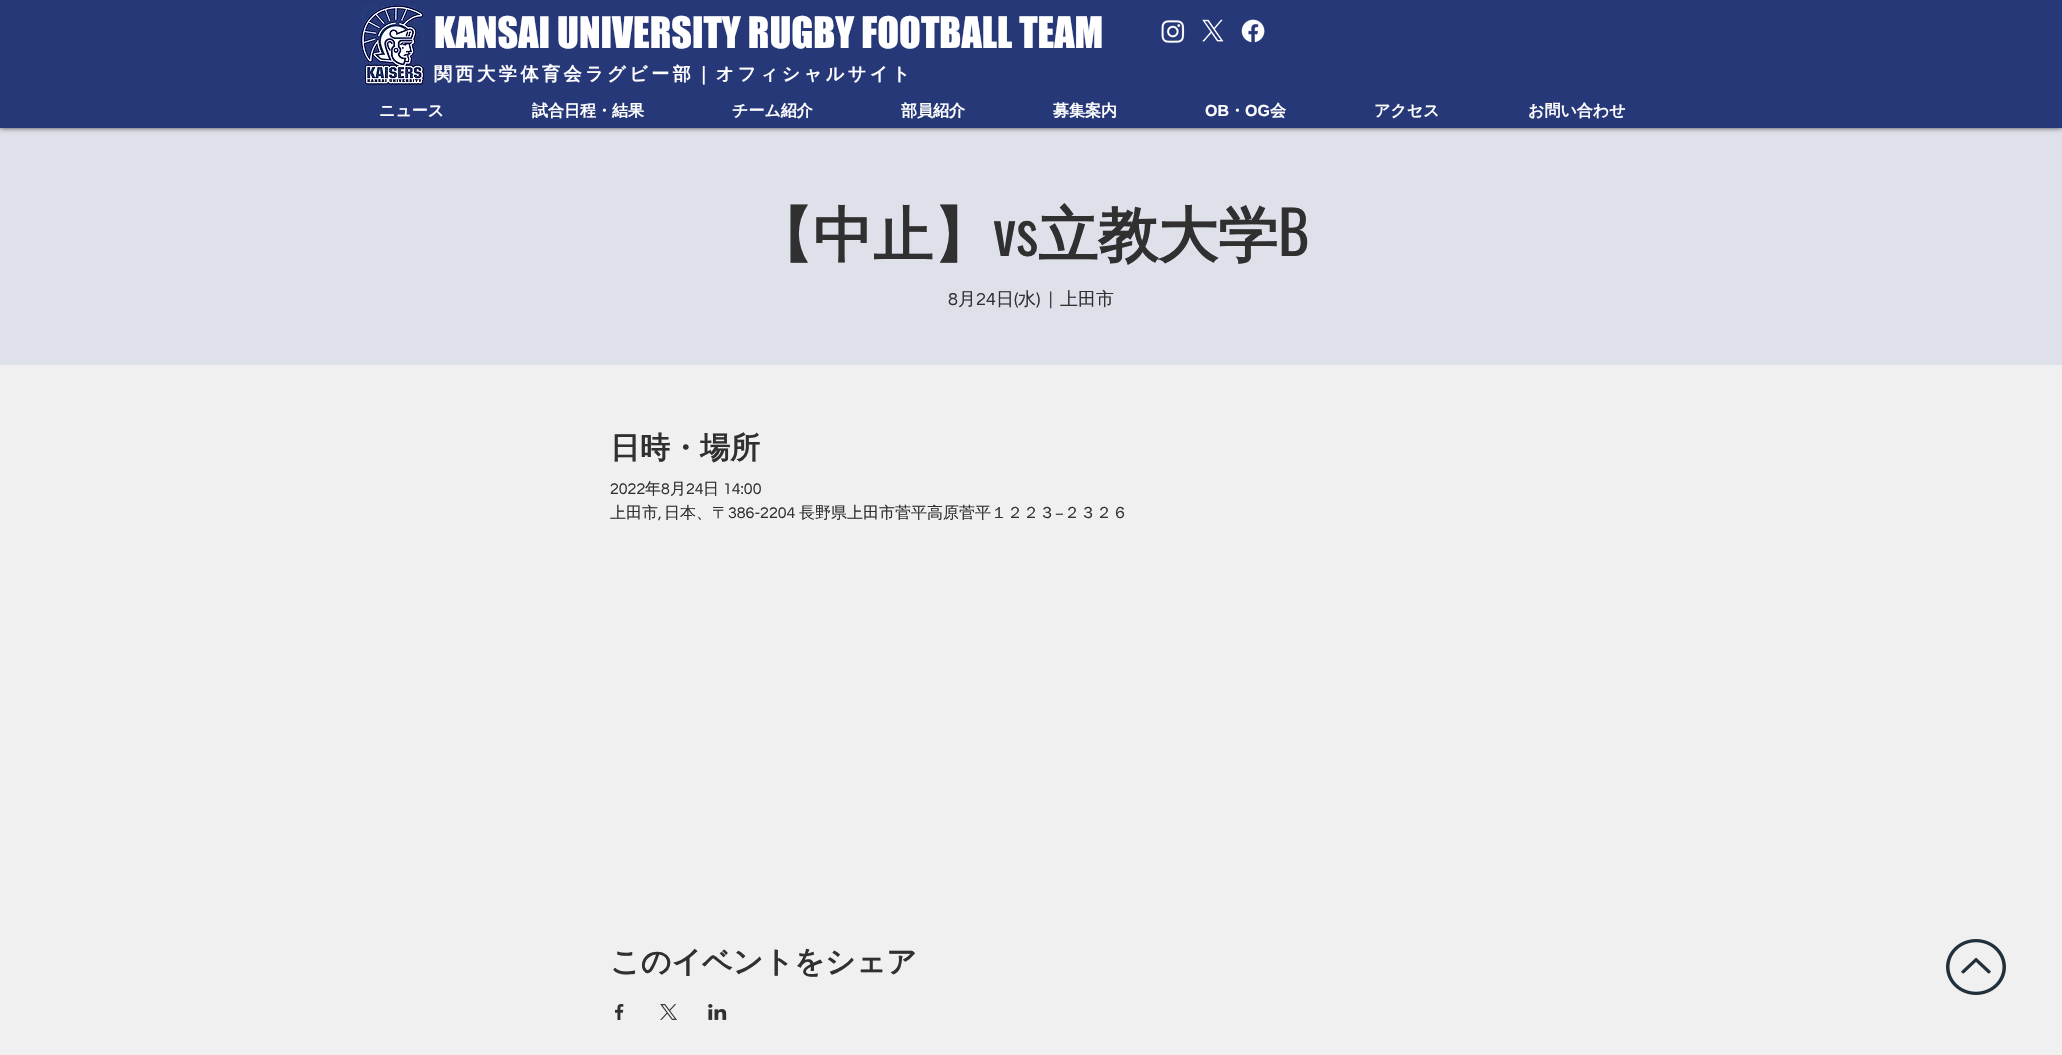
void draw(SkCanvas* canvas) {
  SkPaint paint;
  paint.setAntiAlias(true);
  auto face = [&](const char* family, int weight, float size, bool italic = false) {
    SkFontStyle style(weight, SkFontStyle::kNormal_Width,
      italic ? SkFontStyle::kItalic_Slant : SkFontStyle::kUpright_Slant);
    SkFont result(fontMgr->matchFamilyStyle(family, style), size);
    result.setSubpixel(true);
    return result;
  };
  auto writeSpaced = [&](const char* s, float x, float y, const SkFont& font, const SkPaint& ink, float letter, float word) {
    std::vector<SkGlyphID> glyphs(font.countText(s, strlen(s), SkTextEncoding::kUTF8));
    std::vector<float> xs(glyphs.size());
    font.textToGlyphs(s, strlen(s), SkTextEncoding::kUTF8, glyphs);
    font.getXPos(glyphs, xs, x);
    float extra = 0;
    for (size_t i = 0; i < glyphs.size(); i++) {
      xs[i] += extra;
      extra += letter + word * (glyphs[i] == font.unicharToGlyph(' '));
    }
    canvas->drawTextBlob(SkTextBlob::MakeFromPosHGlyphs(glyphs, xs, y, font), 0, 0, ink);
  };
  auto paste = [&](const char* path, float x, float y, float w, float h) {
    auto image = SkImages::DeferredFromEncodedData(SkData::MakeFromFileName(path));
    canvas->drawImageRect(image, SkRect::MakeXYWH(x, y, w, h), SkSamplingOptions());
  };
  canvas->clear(0xfff0f0f0);
  paint.setColor(0xffdee0ea);
  canvas->drawRect(SkRect::MakeXYWH(0, 128, 2062, 237), paint);
  paint.setColor(0xb3000000);
  paint.setMaskFilter(SkMaskFilter::MakeBlur(kNormal_SkBlurStyle, 2.5f));
  canvas->drawRect(SkRect::MakeXYWH(0, 0, 2062, 128), paint);
  paint.setMaskFilter(nullptr);
  paint.setColor(0xff273878);
  canvas->drawRect(SkRect::MakeXYWH(0, 0, 2062, 128), paint);
  paste("img/1.png", 361, 5, 63, 80);
  paste("img/2.png", 1161, 20, 24, 23);
  paste("img/3.png", 1202, 19, 22, 23);
  paste("img/4.png", 1241, 19, 24, 24);
  paste("img/5.png", 615, 1004, 9, 16);
  paste("img/6.png", 660, 1004, 17, 16);
  paste("img/7.png", 708, 1004, 19, 16);
  paste("img/8.png", 1946, 939, 60, 56);
  auto f0 = face("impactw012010", 400, 40);
  paint.setColor(0xffffffff);
  canvas->drawString("KANSAI UNIVERSITY RUGBY FOOTBALL TEAM", 434, 48, f0, paint);
  auto f1 = face("WenQuanYi Zen Hei", 700, 18);
  writeSpaced("関西大学体育会ラグビー部｜オフィシャルサイト", 434, 80, f1, paint, 3.6f, 0);
  auto f2 = face("WenQuanYi Zen Hei", 700, 16);
  {
    const struct { const char* s; float x, y; } items[] = {
      {"ニュース", 379, 116},
      {"試合日程・結果", 532, 116},
      {"チーム紹介", 732, 116},
      {"部員紹介", 901, 116},
      {"募集案内", 1053, 116},
    };
    for (auto [s, x, y] : items) {
      canvas->drawString(s, x, y, f2, paint);
    }
  }
  auto f3 = face("Liberation Sans", 700, 16);
  canvas->drawString("OB", 1205, 116, f3, paint);
  canvas->drawString("・", 1229, 116, f2, paint);
  canvas->drawString("OG", 1245, 116, f3, paint);
  {
    const struct { const char* s; float x, y; } items[] = {
      {"会", 1270, 116},
      {"アクセス", 1374, 116},
      {"お問い合わせ", 1528, 116},
    };
    for (auto [s, x, y] : items) {
      canvas->drawString(s, x, y, f2, paint);
    }
  }
  auto f4 = face("WenQuanYi Zen Hei", 700, 60);
  paint.setColor(0xff303030);
  canvas->drawString("【中止】", 753, 256, f4, paint);
  auto f5 = face("Oswald", 400, 60);
  canvas->drawString("vs", 993, 256, f5, paint);
  canvas->drawString("立教大学", 1038, 256, f4, paint);
  canvas->drawString("B", 1278, 256, f5, paint);
  auto f6 = face("Questrial", 400, 18);
  canvas->drawString("8", 948, 305, f6, paint);
  auto f7 = face("WenQuanYi Zen Hei", 500, 18);
  canvas->drawString("月", 958, 305, f7, paint);
  canvas->drawString("24", 976, 305, f6, paint);
  canvas->drawString("日", 996, 305, f7, paint);
  canvas->drawString("(", 1014, 305, f6, paint);
  canvas->drawString("水", 1018, 305, f7, paint);
  canvas->drawString(")", 1036, 305, f6, paint);
  canvas->drawString("|", 1049, 305, f6, paint);
  canvas->drawString("上田市", 1060, 305, f7, paint);
  auto f8 = face("WenQuanYi Zen Hei", 700, 30);
  canvas->drawString("日時・場所", 610, 458, f8, paint);
  auto f9 = face("Questrial", 400, 16);
  canvas->drawString("2022", 610, 494, f9, paint);
  auto f10 = face("WenQuanYi Zen Hei", 500, 16);
  canvas->drawString("年", 645, 494, f10, paint);
  canvas->drawString("8", 661, 494, f9, paint);
  canvas->drawString("月", 670, 494, f10, paint);
  canvas->drawString("24", 686, 494, f9, paint);
  canvas->drawString("日", 703, 494, f10, paint);
  canvas->drawString("14:00", 723, 494, f9, paint);
  canvas->drawString("上田市", 610, 518, f10, paint);
  canvas->drawString("日本、〒", 664, 518, f10, paint);
  canvas->drawString("386-2204", 728, 518, f9, paint);
  canvas->drawString("長野県上田市菅平高原菅平１２２３", 799, 518, f10, paint);
  canvas->drawString("−", 1055, 518, f9, paint);
  canvas->drawString("２３２６", 1064, 518, f10, paint);
  canvas->drawString(",", 658, 518, f9, paint);
  canvas->drawString("このイベントをシェア", 610, 972, f8, paint);
}
